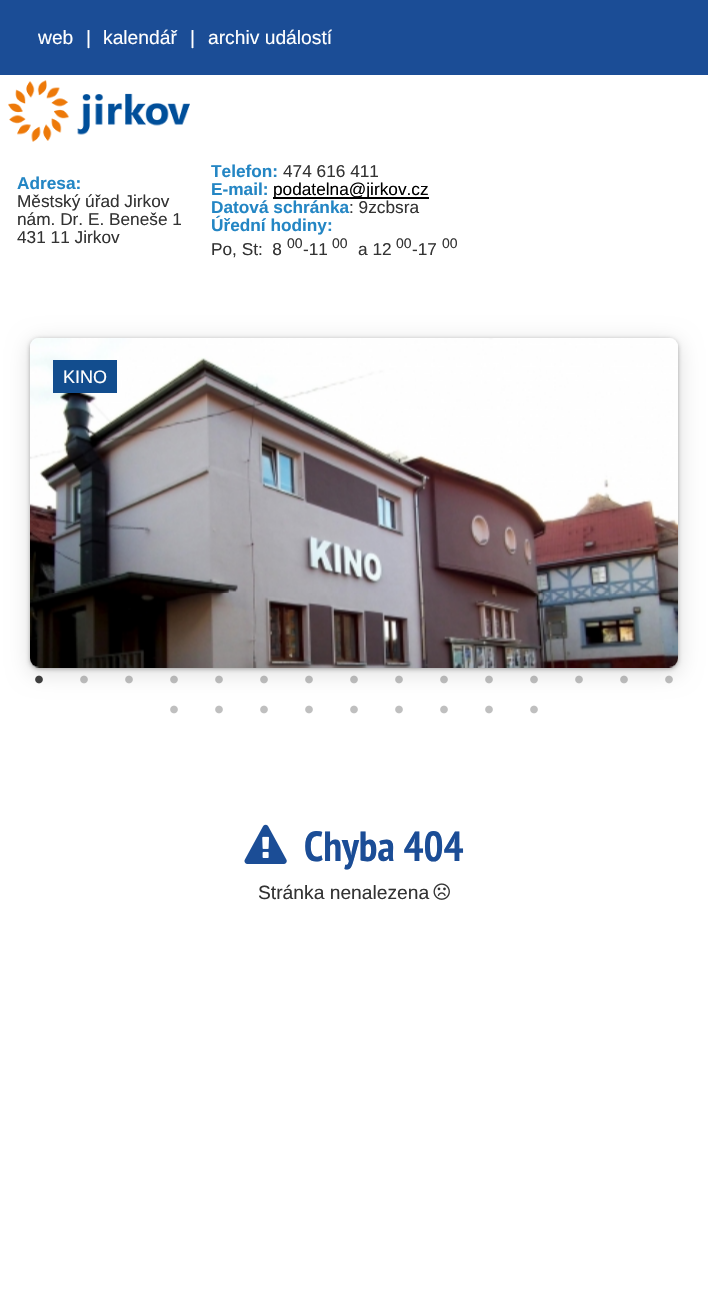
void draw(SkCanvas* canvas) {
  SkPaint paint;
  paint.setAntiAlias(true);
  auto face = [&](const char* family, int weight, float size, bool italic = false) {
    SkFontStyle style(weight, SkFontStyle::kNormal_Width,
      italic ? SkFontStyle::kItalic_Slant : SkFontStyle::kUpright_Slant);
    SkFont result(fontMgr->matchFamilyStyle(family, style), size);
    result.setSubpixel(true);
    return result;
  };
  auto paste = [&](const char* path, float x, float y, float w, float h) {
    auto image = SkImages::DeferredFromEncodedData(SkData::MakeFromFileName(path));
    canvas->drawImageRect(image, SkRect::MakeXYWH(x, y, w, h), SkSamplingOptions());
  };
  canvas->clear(0xffffffff);
  paint.setColor(0xff1b4d96);
  canvas->drawRect(SkRect::MakeXYWH(0, 0, 708, 75), paint);
  paste("img/1.png", 8, 80, 182, 62);
  paint.setColor(0xff000000);
  canvas->drawRect(SkRect::MakeXYWH(273, 197, 156, 2), paint);
  paint.setColor(0x1f000000);
  paint.setMaskFilter(SkMaskFilter::MakeBlur(kNormal_SkBlurStyle, 10.5f));
  canvas->drawRoundRect(SkRect::MakeXYWH(29, 341, 651, 333), 11, 11, paint);
  paint.setMaskFilter(nullptr);
  paint.setColor(0x4d000000);
  paint.setMaskFilter(SkMaskFilter::MakeBlur(kNormal_SkBlurStyle, 2));
  canvas->drawRoundRect(SkRect::MakeXYWH(30, 339, 648, 330), 9, 9, paint);
  paint.setMaskFilter(nullptr);
  paint.setColor(0xffffffff);
  canvas->drawRoundRect(SkRect::MakeXYWH(30, 338, 648, 330), 9, 9, paint);
  paste("img/2.png", 30, 338, 648, 330);
  paint.setColor(0xff124d8e);
  canvas->drawRect(SkRect::MakeXYWH(53, 360, 64, 33), paint);
  paste("img/3.png", 35, 675, 8, 9);
  paste("img/4.png", 80, 675, 8, 9);
  paste("img/4.png", 125, 675, 8, 9);
  paste("img/4.png", 170, 675, 8, 9);
  paste("img/4.png", 215, 675, 8, 9);
  paste("img/4.png", 260, 675, 8, 9);
  paste("img/4.png", 305, 675, 8, 9);
  paste("img/4.png", 350, 675, 8, 9);
  paste("img/4.png", 395, 675, 8, 9);
  paste("img/4.png", 440, 675, 8, 9);
  paste("img/4.png", 485, 675, 8, 9);
  paste("img/4.png", 530, 675, 8, 9);
  paste("img/4.png", 575, 675, 8, 9);
  paste("img/4.png", 620, 675, 8, 9);
  paste("img/5.png", 665, 675, 8, 9);
  paste("img/6.png", 170, 705, 8, 9);
  paste("img/6.png", 215, 705, 8, 9);
  paste("img/6.png", 260, 705, 8, 9);
  paste("img/6.png", 305, 705, 8, 9);
  paste("img/6.png", 350, 705, 8, 9);
  paste("img/6.png", 395, 705, 8, 9);
  paste("img/6.png", 440, 705, 8, 9);
  paste("img/6.png", 485, 705, 8, 9);
  paste("img/6.png", 530, 705, 8, 9);
  paste("img/7.png", 244, 824, 43, 40);
  paste("img/8.png", 433, 883, 17, 17);
  auto f0 = face("Liberation Sans", 400, 19.25f);
  paint.setColor(0xffffffff);
  {
    const struct { const char* s; float x, y; } items[] = {
      {"web", 38, 44},
      {"|", 86, 44},
      {"kalendář", 103, 44},
      {"|", 190, 44},
      {"archiv událostí", 208, 44},
    };
    for (auto [s, x, y] : items) {
      canvas->drawString(s, x, y, f0, paint);
    }
  }
  auto f1 = face("Liberation Sans", 700, 17.25f);
  paint.setColor(0xff2486c4);
  canvas->drawString("Adresa:", 17, 189, f1, paint);
  auto f2 = face("Liberation Sans", 400, 17.25f);
  paint.setColor(0xff333333);
  {
    const struct { const char* s; float x, y; } items[] = {
      {"Městský úřad Jirkov", 17, 207},
      {"nám. Dr. E. Beneše 1", 17, 225},
      {"431 11 Jirkov", 17, 243},
    };
    for (auto [s, x, y] : items) {
      canvas->drawString(s, x, y, f2, paint);
    }
  }
  paint.setColor(0xff2486c4);
  canvas->drawString("Telefon:", 211, 177, f1, paint);
  paint.setColor(0xff333333);
  canvas->drawString("474 616 411", 283, 177, f2, paint);
  paint.setColor(0xff2486c4);
  canvas->drawString("E-mail:", 211, 195, f1, paint);
  paint.setColor(0xff000000);
  canvas->drawString("podatelna@jirkov.cz", 273, 195, f2, paint);
  paint.setColor(0xff2486c4);
  canvas->drawString("Datová schránka", 211, 213, f1, paint);
  paint.setColor(0xff333333);
  canvas->drawString(": 9zcbsra", 349, 213, f2, paint);
  paint.setColor(0xff2486c4);
  canvas->drawString("Úřední hodiny:", 211, 231, f1, paint);
  paint.setColor(0xff333333);
  canvas->drawString("Po, St:  8", 211, 255, f2, paint);
  auto f3 = face("Liberation Sans", 400, 14);
  canvas->drawString("00", 287, 248, f3, paint);
  canvas->drawString("-11", 303, 255, f2, paint);
  canvas->drawString("00", 332, 248, f3, paint);
  canvas->drawString("a 12", 358, 255, f2, paint);
  canvas->drawString("00", 396, 248, f3, paint);
  canvas->drawString("-17", 412, 255, f2, paint);
  canvas->drawString("00", 442, 248, f3, paint);
  auto f4 = face("Liberation Sans", 400, 18);
  paint.setColor(0xffffffff);
  canvas->drawString("KINO", 63, 383, f4, paint);
  auto f5 = face("PT Sans Narrow", 700, 42);
  paint.setColor(0xff1b4d96);
  canvas->drawString("Chyba 404", 304, 861, f5, paint);
  paint.setColor(0xff333333);
  canvas->drawString("Stránka nenalezena", 258, 899, f0, paint);
}
